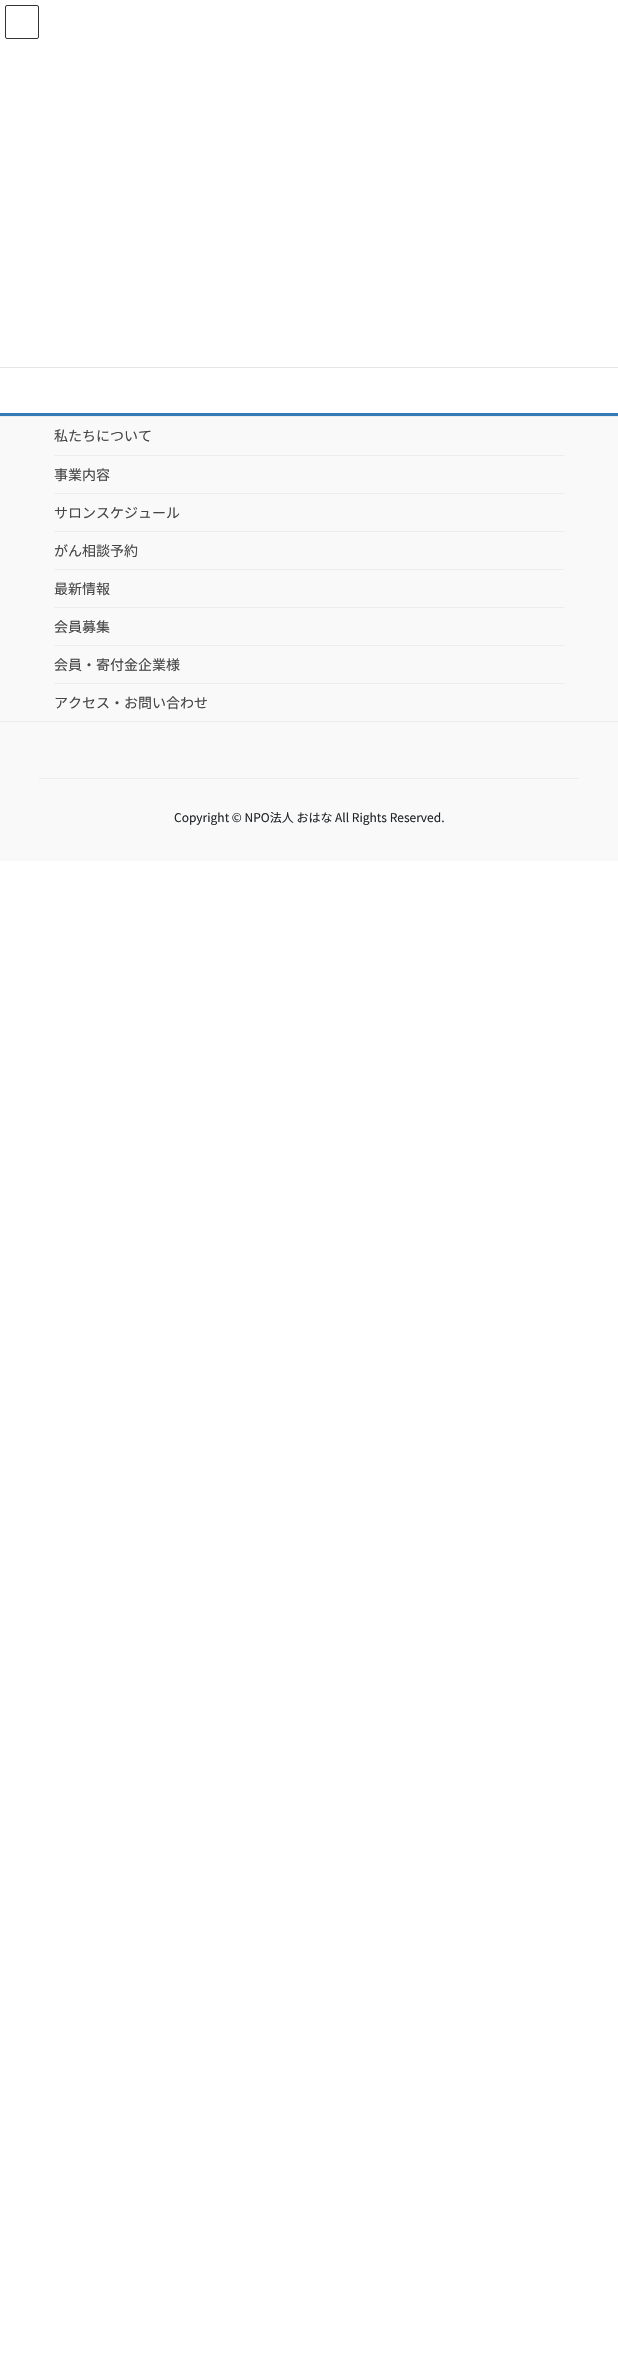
void draw(SkCanvas* canvas) {
  SkPaint paint;
  paint.setAntiAlias(true);
  auto face = [&](const char* family, int weight, float size, bool italic = false) {
    SkFontStyle style(weight, SkFontStyle::kNormal_Width,
      italic ? SkFontStyle::kItalic_Slant : SkFontStyle::kUpright_Slant);
    SkFont result(fontMgr->matchFamilyStyle(family, style), size);
    result.setSubpixel(true);
    return result;
  };
  canvas->clear(0xffffffff);
  paint.setStroke(true);
  paint.setStrokeWidth(1);
  paint.setColor(0xff333333);
  canvas->drawRoundRect(SkRect::MakeXYWH(5.5f, 5.5f, 33, 33), 1.5f, 1.5f, paint);
  paint.setStroke(false);
  {
    const struct { float x, y, w, h; SkColor color; } items[] = {
      {0, 367, 618, 1, 0xffe5e5e5},
      {0, 417, 618, 444, 0xfff9f9f9},
      {0, 413, 618, 3, 0xff337ab7},
      {0, 416, 618, 1, 0xffededed},
      {0, 721, 618, 1, 0xffededed},
      {54, 455, 510, 1, 0xffededed},
      {54, 493, 510, 1, 0xffededed},
      {54, 531, 510, 1, 0xffededed},
      {54, 569, 510, 1, 0xffededed},
      {54, 607, 510, 1, 0xffededed},
      {54, 645, 510, 1, 0xffededed},
      {54, 683, 510, 1, 0xffededed},
      {39, 778, 540, 1, 0xffededed},
    };
    for (auto [x, y, w, h, color] : items) {
      paint.setColor(color);
      canvas->drawRect(SkRect::MakeXYWH(x, y, w, h), paint);
    }
  }
  auto f0 = face("Noto Sans JP", 400, 14);
  paint.setColor(0xff464646);
  {
    const struct { const char* s; float x, y; } items[] = {
      {"私たちについて", 54, 441},
      {"事業内容", 54, 480},
      {"サロンスケジュール", 54, 518},
      {"がん相談予約", 54, 556},
      {"最新情報", 54, 594},
      {"会員募集", 54, 632},
      {"会員・寄付金企業様", 54, 670},
      {"アクセス・お問い合わせ", 54, 708},
    };
    for (auto [s, x, y] : items) {
      canvas->drawString(s, x, y, f0, paint);
    }
  }
  auto f1 = face("Noto Sans JP", 400, 12);
  paint.setColor(0xff212529);
  canvas->drawString("Copyright © NPO法人 おはな All Rights Reserved.", 174, 822, f1, paint);
}
